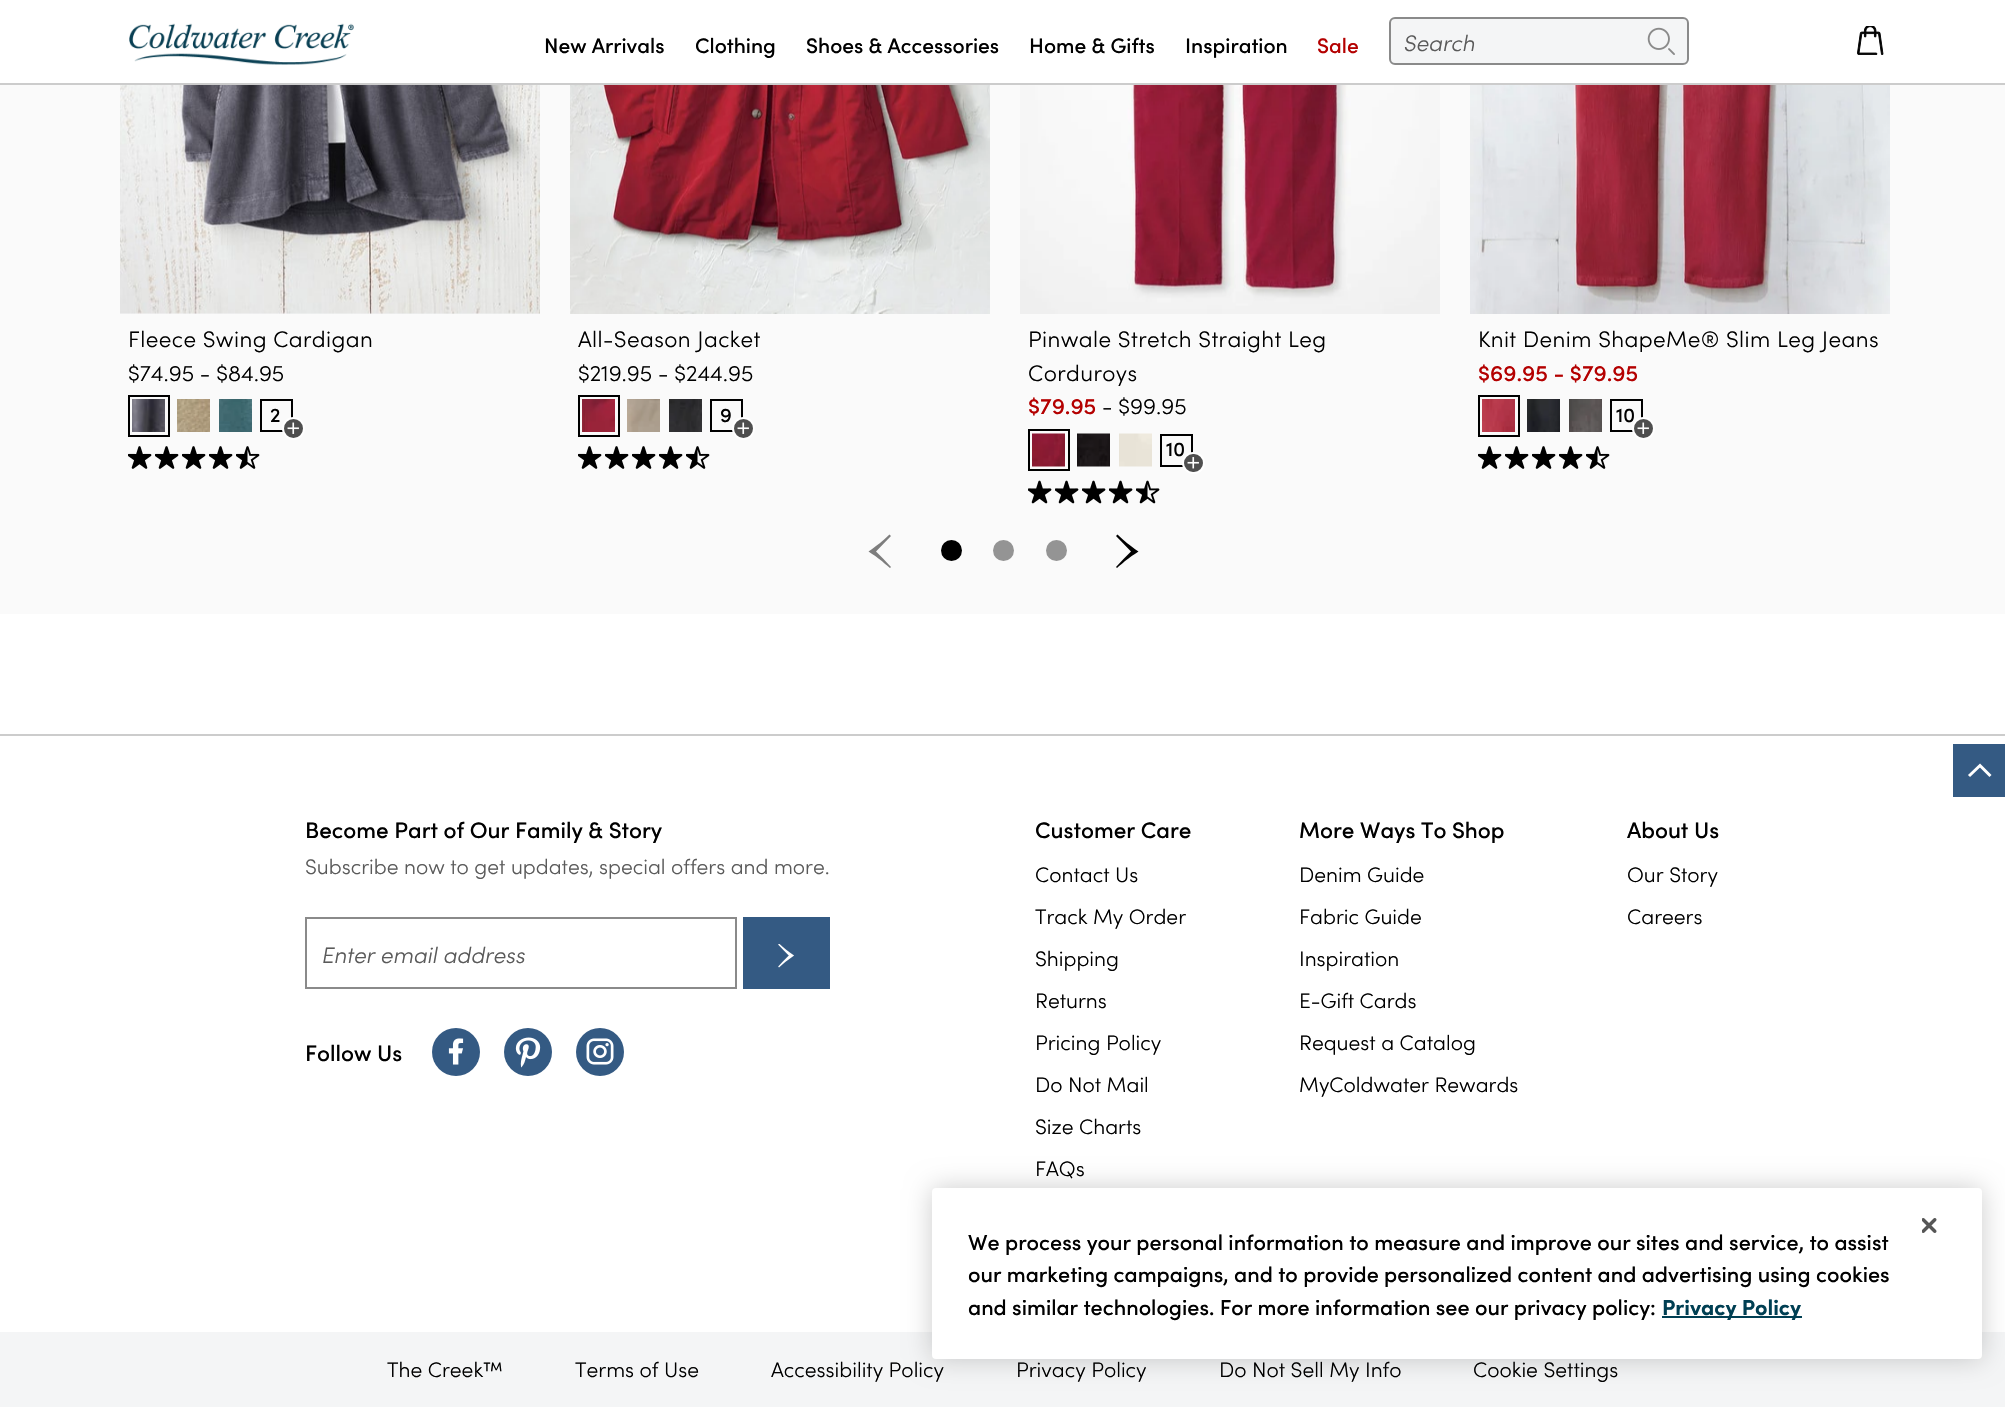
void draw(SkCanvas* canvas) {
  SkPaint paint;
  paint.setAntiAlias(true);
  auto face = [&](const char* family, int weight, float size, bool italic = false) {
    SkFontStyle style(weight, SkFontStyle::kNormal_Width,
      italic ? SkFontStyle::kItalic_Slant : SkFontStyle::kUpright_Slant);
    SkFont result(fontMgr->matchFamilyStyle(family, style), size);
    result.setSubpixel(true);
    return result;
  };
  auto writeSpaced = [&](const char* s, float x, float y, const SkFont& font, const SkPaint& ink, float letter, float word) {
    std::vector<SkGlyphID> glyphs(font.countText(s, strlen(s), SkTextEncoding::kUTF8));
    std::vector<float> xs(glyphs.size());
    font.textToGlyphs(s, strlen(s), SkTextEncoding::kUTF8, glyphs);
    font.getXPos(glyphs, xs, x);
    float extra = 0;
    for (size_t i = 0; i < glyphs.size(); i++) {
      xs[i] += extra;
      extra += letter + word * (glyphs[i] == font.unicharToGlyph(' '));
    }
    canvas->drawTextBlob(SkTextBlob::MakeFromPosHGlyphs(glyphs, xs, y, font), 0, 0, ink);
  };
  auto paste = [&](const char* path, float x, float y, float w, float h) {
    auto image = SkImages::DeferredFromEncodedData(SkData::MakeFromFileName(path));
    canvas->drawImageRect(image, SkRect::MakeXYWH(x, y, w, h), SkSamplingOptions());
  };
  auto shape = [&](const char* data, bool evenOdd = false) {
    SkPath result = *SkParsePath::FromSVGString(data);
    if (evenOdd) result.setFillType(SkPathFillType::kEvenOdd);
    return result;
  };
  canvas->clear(0xffffffff);
  paint.setColor(0xffcccccc);
  canvas->drawRect(SkRect::MakeXYWH(0, 83, 2005, 2), paint);
  paste("img/1.png", 129, 23, 225, 42);
  paste("img/2.png", 1857, 26, 27, 29);
  paint.setColor(0xfff4f5f6);
  canvas->drawRoundRect(SkRect::MakeXYWH(1390, 18, 298, 46), 5, 5, paint);
  paint.setStroke(true);
  paint.setStrokeWidth(2);
  paint.setColor(0xff8a8a8a);
  canvas->drawRoundRect(SkRect::MakeXYWH(1390, 18, 298, 46), 5, 5, paint);
  paste("img/3.png", 1647, 27, 28, 28);
  paint.setStroke(false);
  paint.setColor(0xfffafafa);
  canvas->drawRect(SkRect::MakeXYWH(0, 85, 2005, 529), paint);
  {
    const SkColor colors[] = {0xfff4f5f6, 0xffdfe3e4, 0xffced4d6};
    const float stops[] = {0.07f, 1, 1};
    const SkPoint ends[] = {{68, 261}, {1107, -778}};
    paint.setShader(SkGradientShader::MakeLinear(ends, colors, stops, 3, SkTileMode::kClamp));
    paint.setAlpha(255);
  }
  canvas->drawRect(SkRect::MakeXYWH(295, 313, 245, 1), paint);
  {
    const SkColor colors[] = {0xfff4f5f6, 0x9cced4d6, 0xffced4d6};
    const float stops[] = {0.07f, 1, 1};
    const SkPoint ends[] = {{68, 261}, {1107, -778}};
    paint.setShader(SkGradientShader::MakeLinear(ends, colors, stops, 3, SkTileMode::kClamp));
    paint.setAlpha(255);
  }
  canvas->drawRect(SkRect::MakeXYWH(120, 313, 420, 1), paint);
  paste("img/4.png", 120, 85, 420, 229);
  paint.setStroke(true);
  paint.setShader(nullptr);
  paint.setColor(0xff000000);
  canvas->drawRect(SkRect::MakeXYWH(129, 396, 40, 40), paint);
  paste("img/5.png", 132, 399, 33, 33);
  paste("img/6.png", 177, 399, 33, 33);
  paste("img/7.png", 219, 399, 33, 33);
  canvas->drawRect(SkRect::MakeXYWH(261, 400, 31, 31), paint);
  paint.setStroke(false);
  paint.setColor(0xff4f4f4f);
  canvas->drawCircle(293.5f, 428.5f, 10.5f, paint);
  paint.setStroke(true);
  paint.setColor(0xffffffff);
  canvas->drawCircle(293.5f, 428.5f, 10.5f, paint);
  paste("img/8.png", 287, 422, 12, 12);
  paste("img/9.png", 128, 446, 24, 23);
  paste("img/9.png", 155, 446, 24, 23);
  paste("img/9.png", 182, 446, 24, 23);
  paste("img/9.png", 209, 446, 24, 23);
  paste("img/10.png", 236, 446, 24, 23);
  paste("img/11.png", 570, 85, 420, 229);
  paint.setColor(0xff000000);
  canvas->drawRect(SkRect::MakeXYWH(579, 396, 40, 40), paint);
  paste("img/12.png", 582, 399, 33, 33);
  paste("img/13.png", 627, 399, 33, 33);
  paste("img/14.png", 669, 399, 33, 33);
  canvas->drawRect(SkRect::MakeXYWH(711, 400, 31, 31), paint);
  paint.setStroke(false);
  paint.setColor(0xff4f4f4f);
  canvas->drawCircle(743.5f, 428.5f, 10.5f, paint);
  paint.setStroke(true);
  paint.setColor(0xffffffff);
  canvas->drawCircle(743.5f, 428.5f, 10.5f, paint);
  paste("img/8.png", 737, 422, 12, 12);
  paste("img/9.png", 578, 446, 24, 23);
  paste("img/9.png", 605, 446, 24, 23);
  paste("img/9.png", 632, 446, 24, 23);
  paste("img/9.png", 659, 446, 24, 23);
  paste("img/10.png", 686, 446, 24, 23);
  paste("img/15.png", 1020, 85, 420, 229);
  paint.setColor(0xff000000);
  canvas->drawRect(SkRect::MakeXYWH(1029, 430, 40, 40), paint);
  paste("img/16.png", 1032, 433, 33, 34);
  paste("img/17.png", 1077, 433, 33, 34);
  paste("img/18.png", 1119, 433, 33, 34);
  canvas->drawRect(SkRect::MakeXYWH(1161, 435, 31, 31), paint);
  paste("img/20.png", 1028, 480, 24, 24);
  paste("img/20.png", 1055, 480, 24, 24);
  paste("img/20.png", 1082, 480, 24, 24);
  paste("img/20.png", 1109, 480, 24, 24);
  paste("img/21.png", 1136, 480, 24, 24);
  paste("img/22.png", 1470, 85, 420, 229);
  canvas->drawRect(SkRect::MakeXYWH(1479, 396, 40, 40), paint);
  paste("img/23.png", 1482, 399, 33, 33);
  paste("img/24.png", 1527, 399, 33, 33);
  paste("img/25.png", 1569, 399, 33, 33);
  canvas->drawRect(SkRect::MakeXYWH(1611, 400, 31, 31), paint);
  paste("img/9.png", 1478, 446, 24, 23);
  paste("img/9.png", 1505, 446, 24, 23);
  paste("img/9.png", 1532, 446, 24, 23);
  paste("img/9.png", 1559, 446, 24, 23);
  paste("img/10.png", 1586, 446, 24, 23);
  paint.setStroke(false);
  paint.setColor(0xff7d7d7d);
  canvas->drawPath(shape("M889.5 534.5C882 541.5 878 545 868.5 551.5C880.5 559.5 880.5 560 890 568L891 567C886 561.5 881 556.5 876 551.5L891 536Z"), paint);
  paint.setColor(0xff000000);
  canvas->drawCircle(951.5f, 550.5f, 10.5f, paint);
  paint.setColor(0xff949494);
  canvas->drawCircle(1003.5f, 550.5f, 10.5f, paint);
  canvas->drawCircle(1056.5f, 550.5f, 10.5f, paint);
  paint.setColor(0xff000000);
  canvas->drawPath(shape("M1117.5 534.5C1125 541.5 1129 545 1138.5 551.5C1126.5 559.5 1126.5 560 1117 568L1116 567C1121 561.5 1126 556.5 1131 551.5L1116 536Z"), paint);
  canvas->save();
  canvas->clipRect(SkRect::MakeXYWH(1953, 744, 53, 53));
  paint.setColor(0xff345a83);
  canvas->drawPath(shape("M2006 744H1953V802H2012V744Z"), paint);
  canvas->restore();
  paint.setStroke(true);
  paint.setStrokeWidth(3);
  paint.setColor(0xffffffff);
  canvas->drawPath(shape("M1969 776L1980 765.5L1990.5 776"), paint);
  paint.setStroke(false);
  paint.setColor(0xffcccccc);
  canvas->drawRect(SkRect::MakeXYWH(0, 734, 2005, 2), paint);
  paint.setStroke(true);
  paint.setStrokeWidth(2);
  paint.setColor(0xff8a8a8a);
  canvas->drawRect(SkRect::MakeXYWH(306, 918, 430, 70), paint);
  paint.setStroke(false);
  paint.setColor(0xff345a83);
  canvas->drawRect(SkRect::MakeXYWH(744, 918, 85, 70), paint);
  paint.setStroke(true);
  canvas->drawRect(SkRect::MakeXYWH(744, 918, 85, 70), paint);
  paste("img/26.png", 778, 944, 16, 24);
  paint.setStroke(false);
  canvas->drawCircle(456, 1052, 24, paint);
  paste("img/27.png", 448, 1038, 16, 27);
  canvas->drawCircle(528, 1052, 24, paint);
  paste("img/28.png", 515, 1037, 26, 31);
  canvas->drawCircle(600, 1052, 24, paint);
  paste("img/29.png", 586, 1038, 28, 27);
  paint.setColor(0xfff4f5f6);
  canvas->drawRect(SkRect::MakeXYWH(0, 1332, 2005, 75), paint);
  paint.setColor(0x33000000);
  paint.setMaskFilter(SkMaskFilter::MakeBlur(kNormal_SkBlurStyle, 13.5f));
  canvas->drawRoundRect(SkRect::MakeXYWH(932, 1188, 1050, 171), 4, 4, paint);
  paint.setMaskFilter(nullptr);
  paint.setColor(0xffffffff);
  canvas->drawRoundRect(SkRect::MakeXYWH(932, 1188, 1050, 171), 4, 4, paint);
  paste("img/30.png", 1922, 1218, 15, 15);
  paint.setColor(0xff003f53);
  canvas->drawRect(SkRect::MakeXYWH(1662, 1316, 140, 2), paint);
  auto f0 = face("Sofia", 500, 21);
  paint.setColor(0xff000000);
  {
    const struct { const char* s; float x, y; } items[] = {
      {"New Arrivals", 544, 53},
      {"Clothing", 695, 53},
      {"Shoes & Accessories", 806, 53},
      {"Home & Gifts", 1029, 53},
      {"Inspiration", 1185, 53},
    };
    for (auto [s, x, y] : items) {
      canvas->drawString(s, x, y, f0, paint);
    }
  }
  paint.setColor(0xffb40000);
  canvas->drawString("Sale", 1317, 53, f0, paint);
  auto f1 = face("Sofia", 300, 22.5f, true);
  paint.setColor(0xff5a5a5a);
  canvas->drawString("Search", 1403, 51, f1, paint);
  auto f2 = face("Sofia", 300, 22.5f);
  paint.setColor(0xff000000);
  writeSpaced("Fleece Swing Cardigan", 128, 347, f2, paint, 0.4f, 0);
  canvas->drawString("$74.95 - $84.95", 128, 381, f2, paint);
  auto f3 = face("Sofia", 500, 20);
  canvas->drawString("2", 270, 422, f3, paint);
  writeSpaced("All-Season Jacket", 578, 347, f2, paint, 0.4f, 0);
  canvas->drawString("$219.95 - $244.95", 578, 381, f2, paint);
  canvas->drawString("9", 720, 422, f3, paint);
  writeSpaced("Pinwale Stretch Straight Leg", 1028, 347, f2, paint, 0.4f, 0);
  writeSpaced("Corduroys", 1028, 381, f2, paint, 0.4f, 0);
  auto f4 = face("Sofia", 500, 22.5f);
  paint.setColor(0xffb40000);
  canvas->drawString("$79.95", 1028, 414, f4, paint);
  paint.setColor(0xff000000);
  canvas->drawString("- $99.95", 1102, 414, f2, paint);
  canvas->drawString("10", 1166, 456, f3, paint);
  paint.setColor(0xff4f4f4f);
  canvas->drawRoundRect(SkRect::MakeXYWH(1183, 453, 21, 20), 10, 10, paint);
  paint.setStroke(true);
  paint.setColor(0xffffffff);
  canvas->drawRoundRect(SkRect::MakeXYWH(1183, 453, 21, 20), 10, 10, paint);
  paste("img/19.png", 1187, 457, 12, 12);
  paint.setStroke(false);
  paint.setColor(0xff000000);
  writeSpaced("Knit Denim ShapeMe® Slim Leg Jeans", 1478, 347, f2, paint, 0.4f, 0);
  paint.setColor(0xffb40000);
  canvas->drawString("$69.95 - $79.95", 1478, 381, f4, paint);
  paint.setColor(0xff000000);
  canvas->drawString("10", 1616, 422, f3, paint);
  paint.setColor(0xff4f4f4f);
  canvas->drawCircle(1643.5f, 428.5f, 10.5f, paint);
  paint.setStroke(true);
  paint.setColor(0xffffffff);
  canvas->drawCircle(1643.5f, 428.5f, 10.5f, paint);
  paste("img/8.png", 1637, 422, 12, 12);
  paint.setStroke(false);
  paint.setColor(0xff000000);
  canvas->drawString("Become Part of Our Family & Story", 305, 838, f4, paint);
  auto f5 = face("Sofia", 300, 21);
  paint.setColor(0xff5a5a5a);
  canvas->drawString("Subscribe now to get updates, special offers and more.", 305, 874, f5, paint);
  canvas->drawString("Enter email address", 321, 963, f1, paint);
  paint.setColor(0xff000000);
  canvas->drawString("Follow Us", 305, 1061, f4, paint);
  canvas->drawString("Customer Care", 1035, 838, f4, paint);
  {
    const struct { const char* s; float x, y; } items[] = {
      {"Contact Us", 1035, 882},
      {"Track My Order", 1035, 924},
      {"Shipping", 1035, 966},
      {"Returns", 1035, 1008},
      {"Pricing Policy", 1035, 1050},
      {"Do Not Mail", 1035, 1092},
      {"Size Charts", 1035, 1134},
      {"FAQs", 1035, 1176},
    };
    for (auto [s, x, y] : items) {
      canvas->drawString(s, x, y, f5, paint);
    }
  }
  canvas->drawString("More Ways To Shop", 1299, 838, f4, paint);
  {
    const struct { const char* s; float x, y; } items[] = {
      {"Denim Guide", 1299, 882},
      {"Fabric Guide", 1299, 924},
      {"Inspiration", 1299, 966},
      {"E-Gift Cards", 1299, 1008},
      {"Request a Catalog", 1299, 1050},
      {"MyColdwater Rewards", 1299, 1092},
    };
    for (auto [s, x, y] : items) {
      canvas->drawString(s, x, y, f5, paint);
    }
  }
  canvas->drawString("About Us", 1627, 838, f4, paint);
  {
    const struct { const char* s; float x, y; } items[] = {
      {"Our Story", 1627, 882},
      {"Careers", 1627, 924},
      {"The Creek™", 387, 1377},
      {"Terms of Use", 575, 1377},
      {"Accessibility Policy", 771, 1377},
      {"Privacy Policy", 1016, 1377},
      {"Do Not Sell My Info", 1219, 1377},
      {"Cookie Settings", 1473, 1377},
    };
    for (auto [s, x, y] : items) {
      canvas->drawString(s, x, y, f5, paint);
    }
  }
  auto f6 = face("Sofia", 500, 21.6f);
  {
    const struct { const char* s; float x, y; } items[] = {
      {"We process your personal information to measure and improve our sites and service, to assist", 968, 1250},
      {"our marketing campaigns, and to provide personalized content and advertising using cookies", 968, 1282},
      {"and similar technologies. For more information see our privacy policy:", 968, 1315},
    };
    for (auto [s, x, y] : items) {
      canvas->drawString(s, x, y, f6, paint);
    }
  }
  auto f7 = face("Sofia", 700, 21.6f);
  paint.setColor(0xff003f53);
  canvas->drawString("Privacy Policy", 1662, 1315, f7, paint);
}
